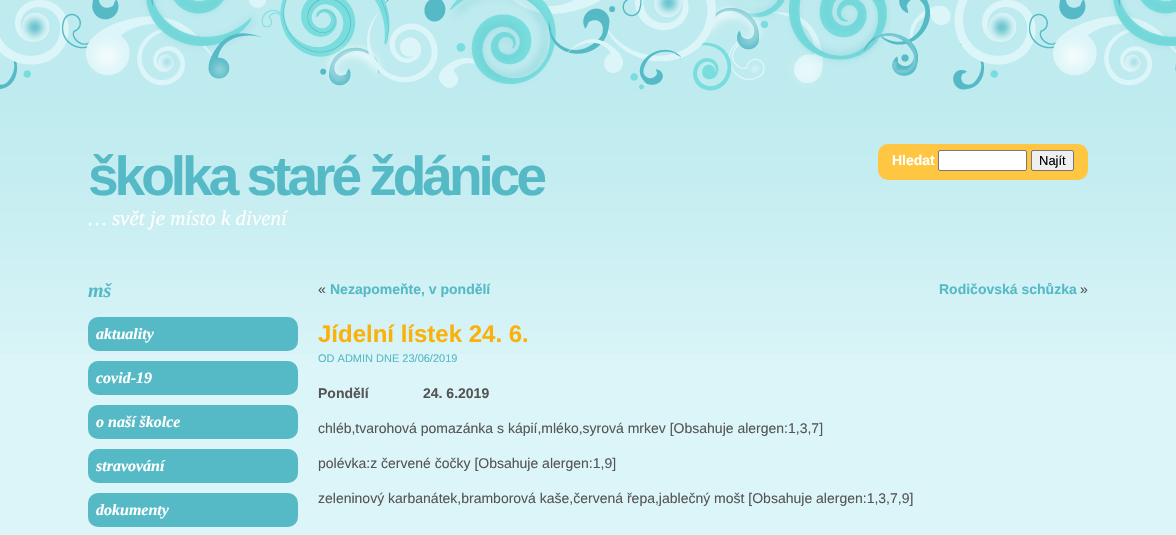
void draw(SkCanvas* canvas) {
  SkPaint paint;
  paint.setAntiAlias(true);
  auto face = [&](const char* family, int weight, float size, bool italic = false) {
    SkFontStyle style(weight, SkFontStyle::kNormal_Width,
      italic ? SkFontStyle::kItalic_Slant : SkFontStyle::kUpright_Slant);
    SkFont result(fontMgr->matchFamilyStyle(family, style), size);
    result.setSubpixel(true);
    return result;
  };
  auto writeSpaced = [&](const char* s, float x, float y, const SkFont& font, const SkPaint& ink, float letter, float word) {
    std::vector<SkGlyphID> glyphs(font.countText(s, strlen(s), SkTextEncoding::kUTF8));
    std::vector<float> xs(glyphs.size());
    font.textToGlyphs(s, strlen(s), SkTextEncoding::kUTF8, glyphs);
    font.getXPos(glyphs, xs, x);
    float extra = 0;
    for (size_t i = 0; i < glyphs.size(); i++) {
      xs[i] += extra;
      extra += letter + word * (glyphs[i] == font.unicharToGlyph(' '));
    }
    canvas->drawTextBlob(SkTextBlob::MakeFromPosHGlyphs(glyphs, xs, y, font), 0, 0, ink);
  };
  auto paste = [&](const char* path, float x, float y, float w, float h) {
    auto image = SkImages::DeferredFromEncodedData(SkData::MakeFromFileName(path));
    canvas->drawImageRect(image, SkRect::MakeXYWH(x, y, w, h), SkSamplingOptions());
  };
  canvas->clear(0xffdcf5f8);
  paste("img/1.png", 0, 0, 1176, 354);
  paste("img/2.png", 0, 0, 1176, 91);
  paint.setColor(0xffffc641);
  canvas->drawRoundRect(SkRect::MakeXYWH(878, 144, 210, 36), 10, 10, paint);
  paint.setColor(0xffffffff);
  canvas->drawRoundRect(SkRect::MakeXYWH(938.5f, 150.5f, 88, 20), 1.5f, 1.5f, paint);
  paint.setStroke(true);
  paint.setStrokeWidth(1);
  paint.setColor(0xff767676);
  canvas->drawRoundRect(SkRect::MakeXYWH(938.5f, 150.5f, 88, 20), 1.5f, 1.5f, paint);
  paint.setStroke(false);
  paint.setColor(0xffefefef);
  canvas->drawRoundRect(SkRect::MakeXYWH(1031.5f, 150.5f, 42, 20), 1.5f, 1.5f, paint);
  paint.setStroke(true);
  paint.setColor(0xff767676);
  canvas->drawRoundRect(SkRect::MakeXYWH(1031.5f, 150.5f, 42, 20), 1.5f, 1.5f, paint);
  paint.setStroke(false);
  paint.setColor(0xff55bac6);
  canvas->drawRoundRect(SkRect::MakeXYWH(88, 317, 210, 34), 10, 10, paint);
  canvas->drawRoundRect(SkRect::MakeXYWH(88, 361, 210, 34), 10, 10, paint);
  canvas->drawRoundRect(SkRect::MakeXYWH(88, 405, 210, 34), 10, 10, paint);
  canvas->drawRoundRect(SkRect::MakeXYWH(88, 449, 210, 34), 10, 10, paint);
  canvas->drawRoundRect(SkRect::MakeXYWH(88, 493, 210, 34), 10, 10, paint);
  auto f0 = face("Liberation Sans", 700, 55);
  writeSpaced("školka staré ždánice", 88, 195, f0, paint, -4, 0);
  auto f1 = face("Liberation Sans", 700, 14);
  paint.setColor(0xffffffff);
  canvas->drawString("Hledat", 892, 165, f1, paint);
  auto f2 = face("Liberation Sans", 400, 13);
  paint.setColor(0xff000000);
  canvas->drawString("Najít", 1039, 165, f2, paint);
  auto f3 = face("Liberation Serif", 400, 21, true);
  paint.setColor(0xffffffff);
  canvas->drawString("… svět je místo k divení", 88, 225, f3, paint);
  auto f4 = face("Liberation Serif", 700, 20, true);
  paint.setColor(0xff55bac6);
  canvas->drawString("mš", 88, 297, f4, paint);
  auto f5 = face("Liberation Serif", 700, 16, true);
  paint.setColor(0xffffffff);
  {
    const struct { const char* s; float x, y; } items[] = {
      {"aktuality", 96, 339},
      {"covid-19", 96, 383},
      {"o naší školce", 96, 427},
      {"stravování", 96, 471},
      {"dokumenty", 96, 515},
    };
    for (auto [s, x, y] : items) {
      canvas->drawString(s, x, y, f5, paint);
    }
  }
  auto f6 = face("Liberation Sans", 400, 14);
  paint.setColor(0xff555555);
  canvas->drawString("«", 318, 294, f6, paint);
  paint.setColor(0xff55bac6);
  canvas->drawString("Nezapomeňte, v pondělí", 330, 294, f1, paint);
  canvas->drawString("Rodičovská schůzka", 939, 294, f1, paint);
  paint.setColor(0xff555555);
  canvas->drawString("»", 1080, 294, f6, paint);
  auto f7 = face("Liberation Sans", 700, 24);
  paint.setColor(0xfff9b20c);
  canvas->drawString("Jídelní lístek 24. 6.", 318, 342, f7, paint);
  auto f8 = face("Liberation Sans", 400, 11);
  paint.setColor(0xff55bac6);
  canvas->drawString("OD ADMIN DNE 23/06/2019", 318, 362, f8, paint);
  paint.setColor(0xff555555);
  canvas->drawString("Pondělí              24. 6.2019", 318, 398, f1, paint);
  {
    const struct { const char* s; float x, y; } items[] = {
      {"chléb,tvarohová pomazánka s kápií,mléko,syrová mrkev [Obsahuje alergen:1,3,7]", 318, 433},
      {"polévka:z červené čočky [Obsahuje alergen:1,9]", 318, 468},
      {"zeleninový karbanátek,bramborová kaše,červená řepa,jablečný mošt [Obsahuje alergen:1,3,7,9]", 318, 503},
    };
    for (auto [s, x, y] : items) {
      canvas->drawString(s, x, y, f6, paint);
    }
  }
}
